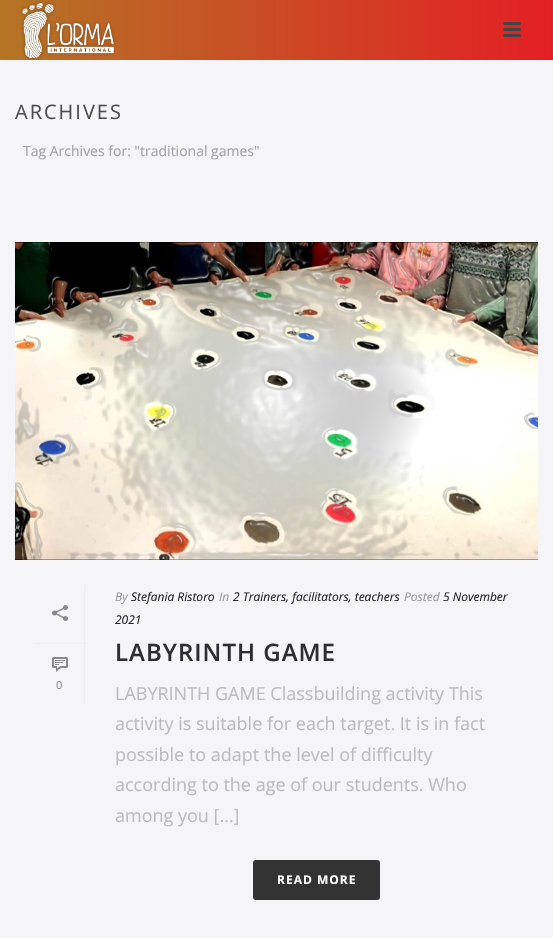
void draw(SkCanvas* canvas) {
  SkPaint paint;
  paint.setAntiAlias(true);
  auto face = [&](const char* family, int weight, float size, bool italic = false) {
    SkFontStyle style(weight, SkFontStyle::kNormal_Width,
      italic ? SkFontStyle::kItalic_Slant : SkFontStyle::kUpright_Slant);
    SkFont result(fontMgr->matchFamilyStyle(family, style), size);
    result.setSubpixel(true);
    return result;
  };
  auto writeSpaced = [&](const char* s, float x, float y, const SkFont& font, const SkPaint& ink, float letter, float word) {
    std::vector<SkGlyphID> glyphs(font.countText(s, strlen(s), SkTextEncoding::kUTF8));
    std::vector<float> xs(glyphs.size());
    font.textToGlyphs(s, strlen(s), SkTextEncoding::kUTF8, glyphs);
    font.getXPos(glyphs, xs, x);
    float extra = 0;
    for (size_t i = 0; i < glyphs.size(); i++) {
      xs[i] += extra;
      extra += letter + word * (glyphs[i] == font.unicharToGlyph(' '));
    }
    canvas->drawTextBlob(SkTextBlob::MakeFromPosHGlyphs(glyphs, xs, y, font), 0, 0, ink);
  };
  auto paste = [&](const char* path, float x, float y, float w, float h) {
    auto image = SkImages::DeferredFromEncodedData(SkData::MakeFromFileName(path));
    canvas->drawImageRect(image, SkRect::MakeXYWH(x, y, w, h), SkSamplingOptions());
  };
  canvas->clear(0xfff5f5f7);
  {
    const SkColor colors[] = {0xffb47525, 0xffe31f24};
    const float stops[] = {0, 1};
    const SkPoint ends[] = {{0, 30}, {553, 30}};
    paint.setShader(SkGradientShader::MakeLinear(ends, colors, stops, 2, SkTileMode::kClamp));
    paint.setAlpha(255);
  }
  canvas->drawRect(SkRect::MakeXYWH(0, 0, 553, 60), paint);
  paste("img/1.png", 20, 0, 95, 60);
  paint.setShader(nullptr);
  paint.setColor(0xff444444);
  canvas->drawRoundRect(SkRect::MakeXYWH(503, 22, 18, 3), 1.5f, 1.5f, paint);
  canvas->drawRoundRect(SkRect::MakeXYWH(503, 28, 18, 3), 1.5f, 1.5f, paint);
  canvas->drawRoundRect(SkRect::MakeXYWH(503, 34, 18, 3), 1.5f, 1.5f, paint);
  paste("img/2.png", 15, 242, 523, 318);
  paint.setColor(0xffefefef);
  canvas->drawRect(SkRect::MakeXYWH(84, 585, 1, 120), paint);
  canvas->drawRect(SkRect::MakeXYWH(35, 643, 49, 1), paint);
  paste("img/3.png", 52, 605, 16, 16);
  paste("img/4.png", 52, 657, 16, 15);
  paint.setColor(0xff333333);
  canvas->drawRoundRect(SkRect::MakeXYWH(253, 860, 127, 40), 3, 3, paint);
  auto f0 = face("Open Sans", 400, 20);
  paint.setColor(0xff4d4d4d);
  writeSpaced("ARCHIVES", 15, 119, f0, paint, 2, 0);
  auto f1 = face("Open Sans", 400, 14);
  paint.setColor(0xffa3a3a3);
  canvas->drawString("Tag Archives for: \"traditional games\"", 23, 156, f1, paint);
  auto f2 = face("Open Sans", 400, 11);
  paint.setColor(0xff898989);
  canvas->drawString("0", 56, 689, f2, paint);
  auto f3 = face("Open Sans", 400, 12, true);
  paint.setColor(0xff999999);
  canvas->drawString("By", 115, 601, f3, paint);
  paint.setColor(0xff252525);
  canvas->drawString("Stefania Ristoro", 131, 601, f3, paint);
  paint.setColor(0xff999999);
  canvas->drawString("In", 219, 601, f3, paint);
  paint.setColor(0xff252525);
  canvas->drawString("2 Trainers, facilitators, teachers", 233, 601, f3, paint);
  paint.setColor(0xff999999);
  canvas->drawString("Posted", 404, 601, f3, paint);
  paint.setColor(0xff252525);
  canvas->drawString("5 November", 443, 601, f3, paint);
  canvas->drawString("2021", 115, 624, f3, paint);
  auto f4 = face("Open Sans", 600, 24);
  paint.setColor(0xff2e2e2e);
  writeSpaced("LABYRINTH GAME", 115, 661, f4, paint, 1, 0);
  auto f5 = face("Open Sans", 400, 18);
  paint.setColor(0xffbcbcbc);
  {
    const struct { const char* s; float x, y; } items[] = {
      {"LABYRINTH GAME Classbuilding activity This", 115, 700},
      {"activity is suitable for each target. It is in fact", 115, 730},
      {"possible to adapt the level of difficulty", 115, 761},
      {"according to the age of our students. Who", 115, 791},
      {"among you [...]", 115, 822},
    };
    for (auto [s, x, y] : items) {
      canvas->drawString(s, x, y, f5, paint);
    }
  }
  auto f6 = face("Open Sans", 700, 12);
  paint.setColor(0xffffffff);
  writeSpaced("READ MORE", 277, 884, f6, paint, 1, 0);
}
